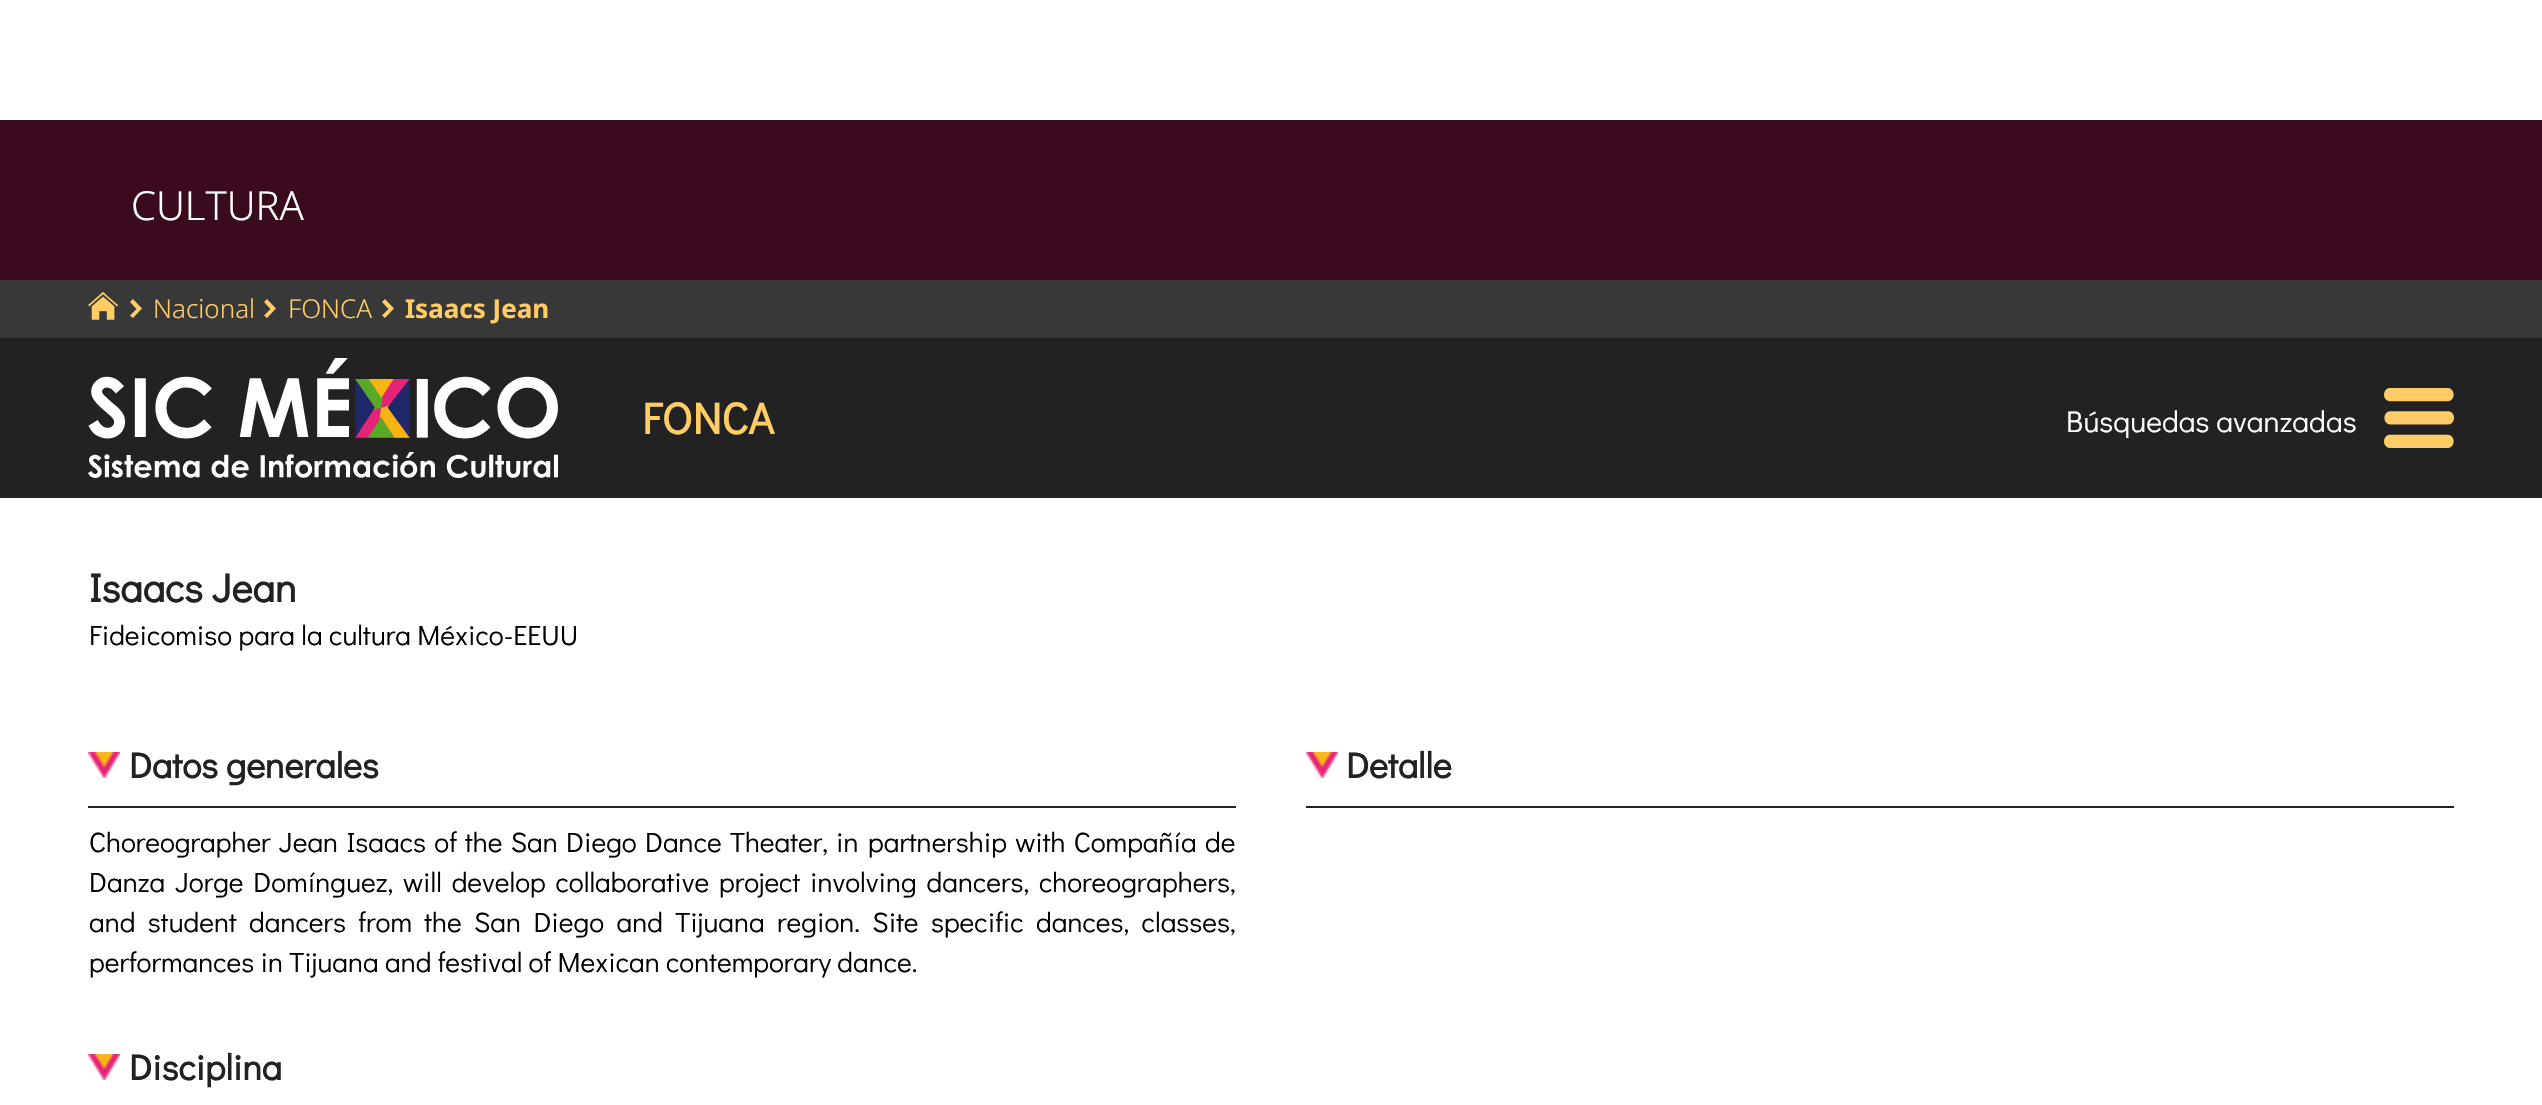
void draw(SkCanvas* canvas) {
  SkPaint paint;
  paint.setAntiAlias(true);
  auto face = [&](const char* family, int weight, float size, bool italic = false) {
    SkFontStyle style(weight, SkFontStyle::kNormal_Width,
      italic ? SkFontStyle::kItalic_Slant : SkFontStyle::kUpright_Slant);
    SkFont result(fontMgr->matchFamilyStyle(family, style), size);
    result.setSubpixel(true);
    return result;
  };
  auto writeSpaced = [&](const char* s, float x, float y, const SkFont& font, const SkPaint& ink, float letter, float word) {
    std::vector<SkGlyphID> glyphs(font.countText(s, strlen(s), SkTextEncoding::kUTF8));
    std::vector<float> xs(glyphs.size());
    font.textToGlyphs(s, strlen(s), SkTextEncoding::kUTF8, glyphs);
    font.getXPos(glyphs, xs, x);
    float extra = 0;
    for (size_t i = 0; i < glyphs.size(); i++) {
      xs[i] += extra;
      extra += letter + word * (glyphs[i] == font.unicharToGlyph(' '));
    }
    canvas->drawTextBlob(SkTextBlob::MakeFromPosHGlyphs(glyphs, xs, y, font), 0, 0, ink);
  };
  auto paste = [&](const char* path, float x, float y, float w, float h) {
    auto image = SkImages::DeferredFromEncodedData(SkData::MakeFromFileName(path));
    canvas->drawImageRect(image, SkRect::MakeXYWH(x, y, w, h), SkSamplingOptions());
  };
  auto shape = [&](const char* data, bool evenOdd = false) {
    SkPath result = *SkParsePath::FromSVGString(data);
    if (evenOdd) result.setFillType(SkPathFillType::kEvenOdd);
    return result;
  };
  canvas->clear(0xffffffff);
  paint.setColor(0xff3a0b1f);
  canvas->drawRect(SkRect::MakeXYWH(0, 120, 2542, 160), paint);
  paint.setColor(0xff373837);
  canvas->drawRect(SkRect::MakeXYWH(0, 280, 2542, 58), paint);
  paste("img/1.png", 88, 291, 31, 29);
  paint.setColor(0xffffcc66);
  canvas->drawPath(shape("M142 308.5L133 318L130 315.5L136.5 309L130 302L133 299Z"), paint);
  canvas->drawPath(shape("M276 308.5L267 318L264 315.5L270.5 309L264 302L267 299Z"), paint);
  canvas->drawPath(shape("M394 308.5L385 318L382 315.5L388.5 309L382 302L385 299Z"), paint);
  paint.setColor(0xff212221);
  canvas->drawRect(SkRect::MakeXYWH(0, 338, 2542, 160), paint);
  paste("img/2.png", 88, 358, 470, 120);
  paste("img/3.png", 2384, 388, 70, 60);
  paste("img/4.png", 88, 752, 32, 26);
  canvas->drawRect(SkRect::MakeXYWH(88, 806, 1148, 2), paint);
  paste("img/4.png", 1306, 752, 32, 26);
  canvas->drawRect(SkRect::MakeXYWH(1306, 806, 1148, 2), paint);
  paste("img/4.png", 88, 1054, 32, 26);
  auto f0 = face("Noto Sans", 300, 40);
  paint.setColor(0xffffffff);
  canvas->drawString("CULTURA", 131, 220, f0, paint);
  auto f1 = face("Noto Sans", 300, 26);
  paint.setColor(0xffffcc66);
  canvas->drawString("Nacional", 153, 318, f1, paint);
  canvas->drawString("FONCA", 288, 318, f1, paint);
  auto f2 = face("Noto Sans", 700, 26);
  canvas->drawString("Isaacs Jean", 405, 318, f2, paint);
  auto f3 = face("Didact Gothic", 700, 44);
  canvas->drawString("FONCA", 642, 434, f3, paint);
  auto f4 = face("Didact Gothic", 400, 30);
  paint.setColor(0xffffffff);
  canvas->drawString("Búsquedas avanzadas", 2066, 432, f4, paint);
  auto f5 = face("Didact Gothic", 700, 40);
  paint.setColor(0xff212221);
  canvas->drawString("Isaacs Jean", 89, 602, f5, paint);
  auto f6 = face("Didact Gothic", 400, 28);
  paint.setColor(0xff000000);
  canvas->drawString("Fideicomiso para la cultura México-EEUU", 89, 645, f6, paint);
  auto f7 = face("Didact Gothic", 700, 36);
  paint.setColor(0xff212221);
  canvas->drawString("Datos generales", 129, 778, f7, paint);
  paint.setColor(0xff000000);
  writeSpaced("Choreographer Jean Isaacs of the San Diego Dance Theater, in", 89, 852, f6, paint, 0, 2);
  writeSpaced("partnership with Compañía de", 868, 852, f6, paint, 0, 2);
  writeSpaced("Danza Jorge Domínguez, will develop collaborative project involving dancers, choreographers,", 89, 892, f6, paint, 0, 3.5f);
  writeSpaced("and student dancers from the San Diego and Tijuana region. Site specific dances, classes,", 89, 932, f6, paint, 0, 6.1f);
  canvas->drawString("performances in Tijuana and festival of Mexican contemporary dance.", 89, 972, f6, paint);
  paint.setColor(0xff212221);
  canvas->drawString("Detalle", 1346, 778, f7, paint);
  canvas->drawString("Disciplina", 129, 1080, f7, paint);
}
